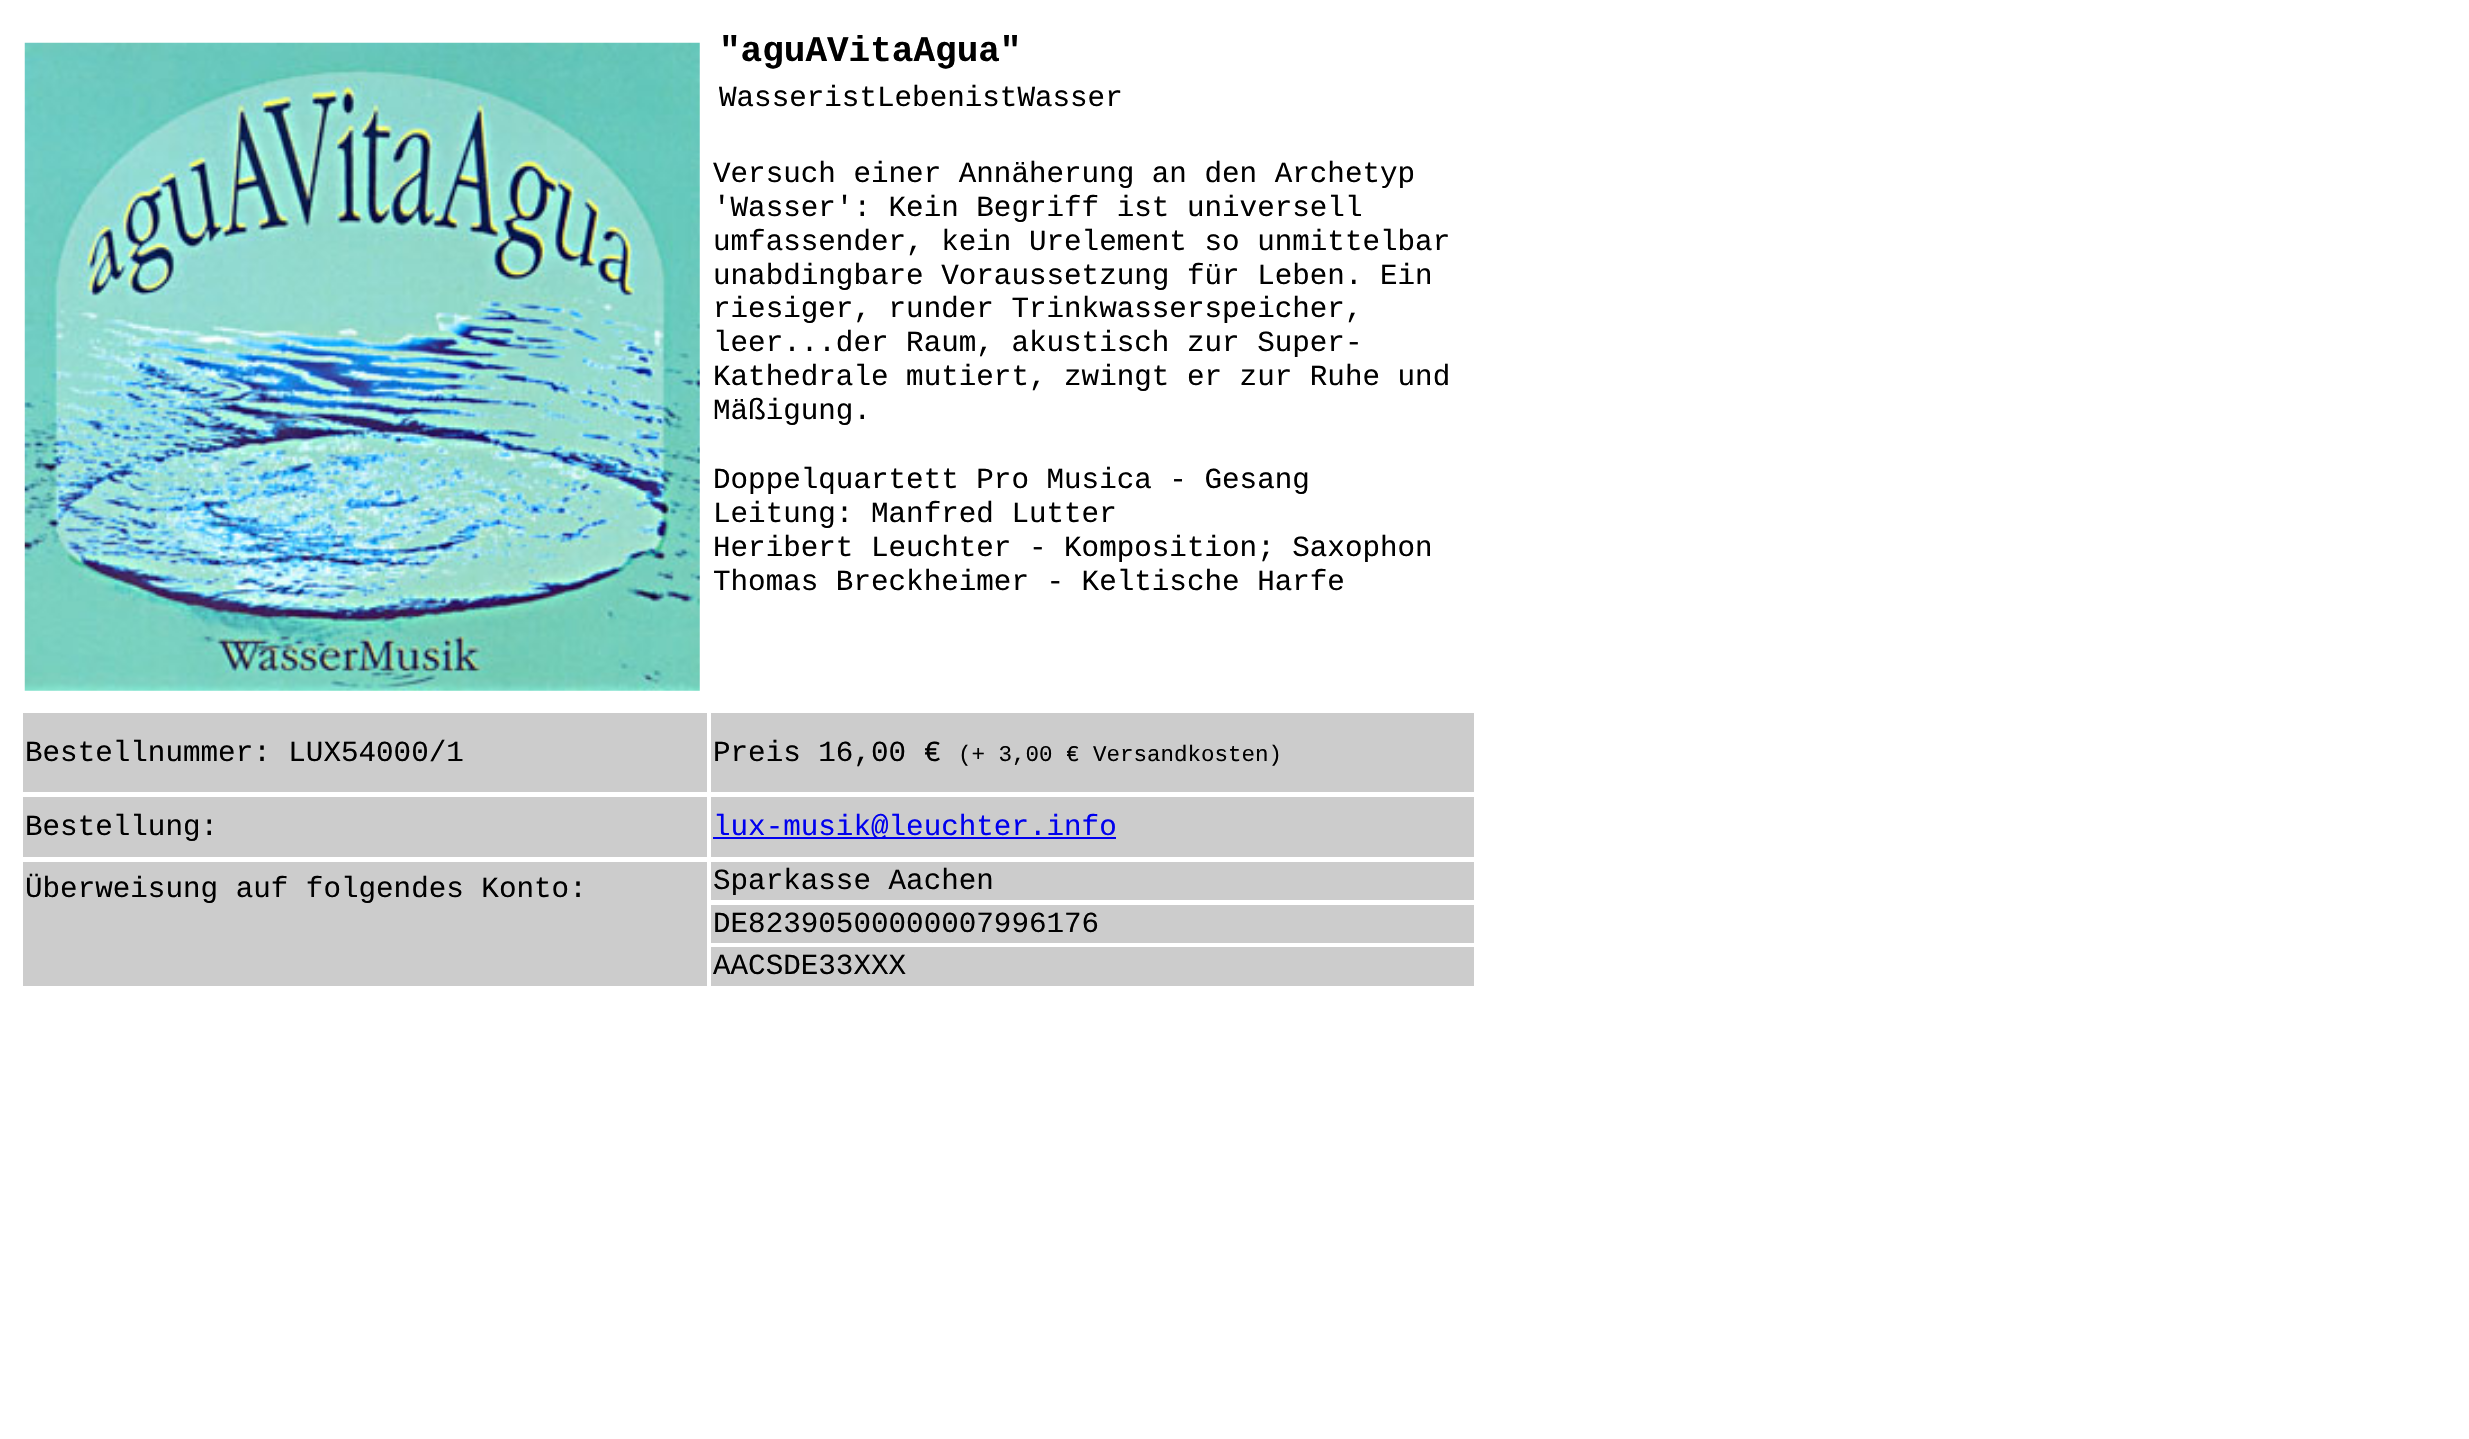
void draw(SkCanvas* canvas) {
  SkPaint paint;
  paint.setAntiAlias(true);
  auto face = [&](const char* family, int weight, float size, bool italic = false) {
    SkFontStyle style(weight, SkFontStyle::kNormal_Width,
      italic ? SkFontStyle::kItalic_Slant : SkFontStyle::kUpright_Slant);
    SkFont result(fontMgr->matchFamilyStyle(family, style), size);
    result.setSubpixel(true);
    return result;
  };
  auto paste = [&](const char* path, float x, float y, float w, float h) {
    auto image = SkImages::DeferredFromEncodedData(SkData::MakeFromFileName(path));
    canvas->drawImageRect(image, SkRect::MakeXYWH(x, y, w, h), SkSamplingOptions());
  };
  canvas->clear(0xffffffff);
  paste("img/1.png", 24, 42, 676, 649);
  {
    const struct { float x, y, w, h; SkColor color; } items[] = {
      {23, 713, 684, 79, 0xffcccccc},
      {711, 713, 763, 79, 0xffcccccc},
      {23, 797, 684, 60, 0xffcccccc},
      {711, 797, 763, 60, 0xffcccccc},
      {713, 837, 403, 2, 0xff0000ee},
      {23, 862, 684, 124, 0xffcccccc},
      {711, 862, 763, 38, 0xffcccccc},
      {711, 905, 763, 38, 0xffcccccc},
      {711, 947, 763, 39, 0xffcccccc},
    };
    for (auto [x, y, w, h, color] : items) {
      paint.setColor(color);
      canvas->drawRect(SkRect::MakeXYWH(x, y, w, h), paint);
    }
  }
  auto f0 = face("Liberation Mono", 700, 36);
  paint.setColor(0xff000000);
  canvas->drawString("\"aguAVitaAgua\"", 719, 61, f0, paint);
  auto f1 = face("Liberation Mono", 400, 29.25f);
  {
    const struct { const char* s; float x, y; } items[] = {
      {"WasseristLebenistWasser", 719, 106},
      {"Versuch einer Annäherung an den Archetyp", 713, 182},
      {"'Wasser': Kein Begriff ist universell", 713, 216},
      {"umfassender, kein Urelement so unmittelbar", 713, 250},
      {"unabdingbare Voraussetzung für Leben. Ein", 713, 284},
      {"riesiger, runder Trinkwasserspeicher,", 713, 317},
      {"leer...der Raum, akustisch zur Super-", 713, 351},
      {"Kathedrale mutiert, zwingt er zur Ruhe und", 713, 385},
      {"Mäßigung.", 713, 419},
      {"Doppelquartett Pro Musica - Gesang", 713, 488},
      {"Leitung: Manfred Lutter", 713, 522},
      {"Heribert Leuchter - Komposition; Saxophon", 713, 556},
      {"Thomas Breckheimer - Keltische Harfe", 713, 590},
      {"Bestellnummer: LUX54000/1", 25, 761},
      {"Preis 16,00 €", 713, 761},
    };
    for (auto [s, x, y] : items) {
      canvas->drawString(s, x, y, f1, paint);
    }
  }
  auto f2 = face("Liberation Mono", 400, 22.5f);
  canvas->drawString("(+ 3,00 € Versandkosten)", 958, 761, f2, paint);
  canvas->drawString("Bestellung:", 25, 835, f1, paint);
  paint.setColor(0xff0000ee);
  canvas->drawString("lux-musik@leuchter.info", 713, 835, f1, paint);
  paint.setColor(0xff000000);
  {
    const struct { const char* s; float x, y; } items[] = {
      {"Überweisung auf folgendes Konto:", 25, 897},
      {"Sparkasse Aachen", 713, 889},
      {"DE82390500000007996176", 713, 932},
      {"AACSDE33XXX", 713, 974},
    };
    for (auto [s, x, y] : items) {
      canvas->drawString(s, x, y, f1, paint);
    }
  }
}
